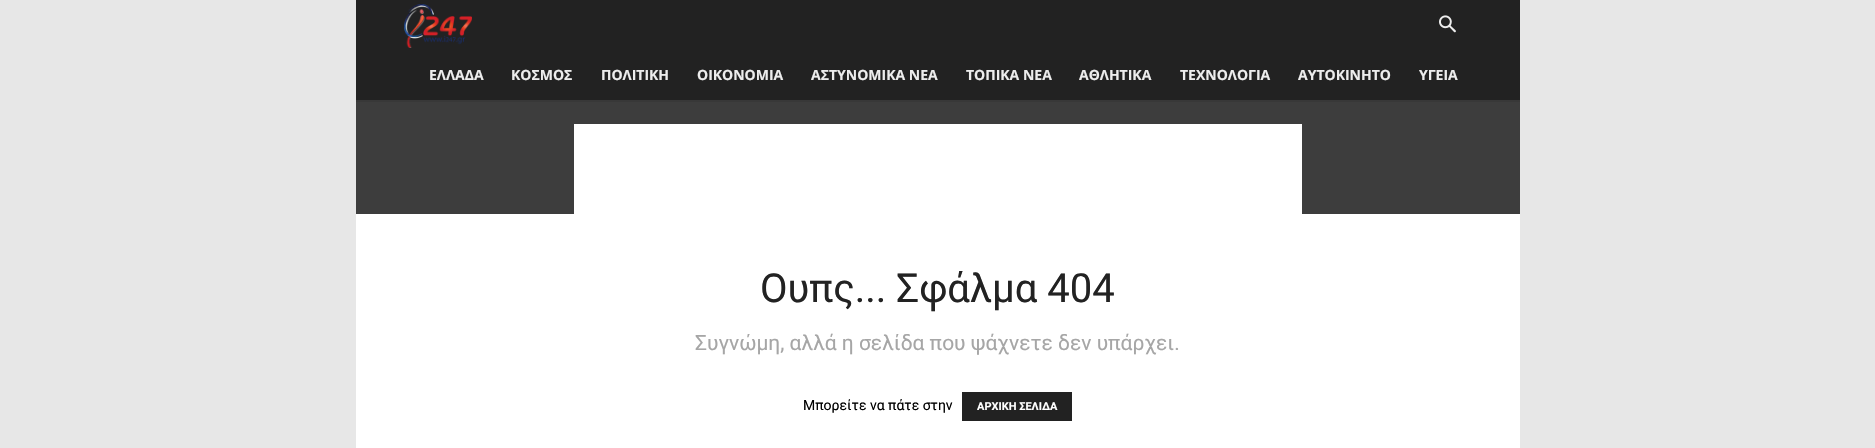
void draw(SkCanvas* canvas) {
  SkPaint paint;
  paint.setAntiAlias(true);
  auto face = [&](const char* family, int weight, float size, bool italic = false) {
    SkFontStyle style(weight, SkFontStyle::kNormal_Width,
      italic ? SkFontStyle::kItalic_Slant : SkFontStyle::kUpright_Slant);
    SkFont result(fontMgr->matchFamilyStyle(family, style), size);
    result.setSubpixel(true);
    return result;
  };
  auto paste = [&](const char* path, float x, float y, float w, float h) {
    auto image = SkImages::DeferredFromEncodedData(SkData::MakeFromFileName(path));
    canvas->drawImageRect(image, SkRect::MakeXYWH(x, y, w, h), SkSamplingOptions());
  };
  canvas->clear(0xffe7e7e7);
  paint.setColor(0xff222222);
  canvas->drawRect(SkRect::MakeXYWH(356, 0, 1164, 100), paint);
  paste("img/1.png", 1439, 15, 17, 18);
  paste("img/2.png", 404, 4, 68, 44);
  {
    const struct { float x, y, w, h; SkColor color; } items[] = {
      {356, 100, 1164, 2, 0xff383838},
      {356, 102, 1164, 112, 0xff3d3d3d},
      {574, 124, 728, 90, 0xffffffff},
      {356, 214, 1164, 234, 0xffffffff},
      {962, 392, 110, 29, 0xff222222},
    };
    for (auto [x, y, w, h, color] : items) {
      paint.setColor(color);
      canvas->drawRect(SkRect::MakeXYWH(x, y, w, h), paint);
    }
  }
  auto f0 = face("Open Sans", 700, 14);
  paint.setColor(0xffededed);
  {
    const struct { const char* s; float x, y; } items[] = {
      {"ΕΛΛΑΔΑ", 429, 80},
      {"ΚΟΣΜΟΣ", 511, 80},
      {"ΠΟΛΙΤΙΚΗ", 601, 80},
      {"ΟΙΚΟΝΟΜΙΑ", 697, 80},
      {"ΑΣΤΥΝΟΜΙΚΑ ΝΕΑ", 811, 80},
      {"ΤΟΠΙΚΑ ΝΕΑ", 966, 80},
      {"ΑΘΛΗΤΙΚΑ", 1079, 80},
      {"ΤΕΧΝΟΛΟΓΙΑ", 1180, 80},
      {"ΑΥΤΟΚΙΝΗΤΟ", 1298, 80},
      {"ΥΓΕΙΑ", 1419, 80},
    };
    for (auto [s, x, y] : items) {
      canvas->drawString(s, x, y, f0, paint);
    }
  }
  auto f1 = face("Roboto", 400, 40);
  paint.setColor(0xff222222);
  canvas->drawString("Ουπς... Σφάλμα 404", 760, 302, f1, paint);
  auto f2 = face("Roboto", 400, 21);
  paint.setColor(0xffa6a6a6);
  canvas->drawString("Συγνώμη, αλλά η σελίδα που ψάχνετε δεν υπάρχει.", 695, 350, f2, paint);
  auto f3 = face("Roboto", 400, 14);
  paint.setColor(0xff000000);
  canvas->drawString("Μπορείτε να πάτε στην", 803, 410, f3, paint);
  auto f4 = face("Roboto", 700, 11);
  paint.setColor(0xffffffff);
  canvas->drawString("ΑΡΧΙΚΗ ΣΕΛΙΔΑ", 977, 410, f4, paint);
}
